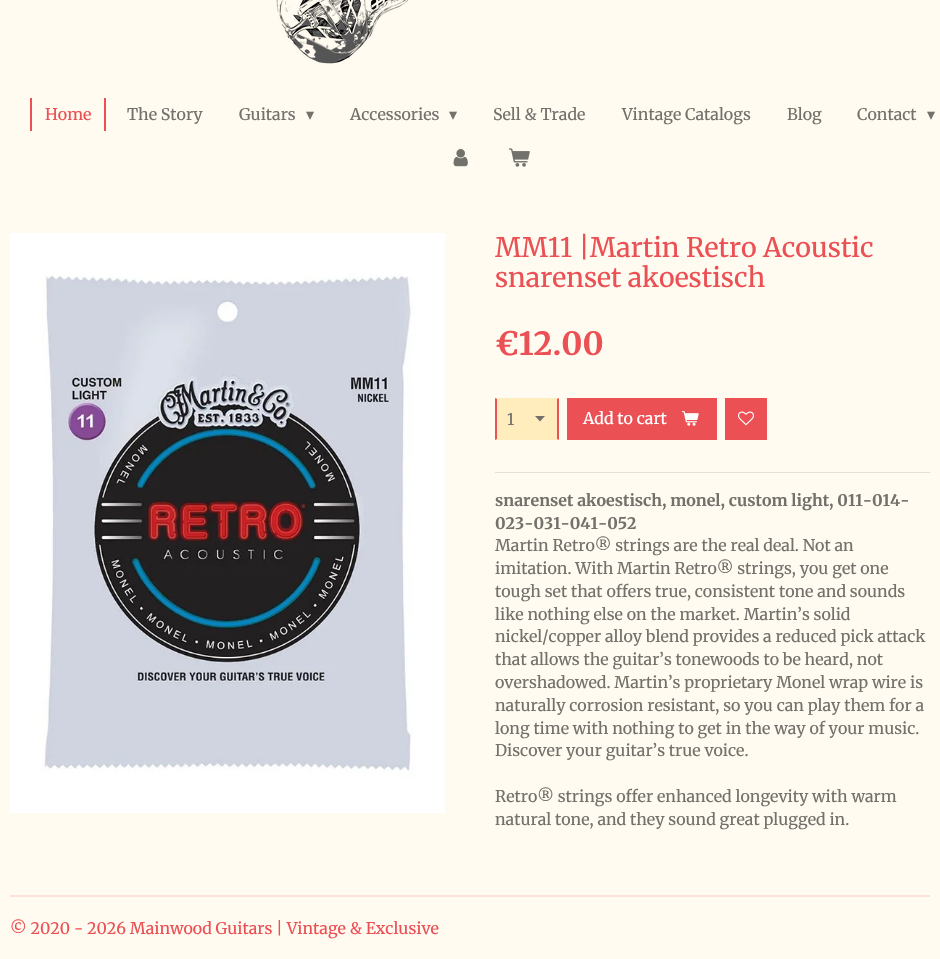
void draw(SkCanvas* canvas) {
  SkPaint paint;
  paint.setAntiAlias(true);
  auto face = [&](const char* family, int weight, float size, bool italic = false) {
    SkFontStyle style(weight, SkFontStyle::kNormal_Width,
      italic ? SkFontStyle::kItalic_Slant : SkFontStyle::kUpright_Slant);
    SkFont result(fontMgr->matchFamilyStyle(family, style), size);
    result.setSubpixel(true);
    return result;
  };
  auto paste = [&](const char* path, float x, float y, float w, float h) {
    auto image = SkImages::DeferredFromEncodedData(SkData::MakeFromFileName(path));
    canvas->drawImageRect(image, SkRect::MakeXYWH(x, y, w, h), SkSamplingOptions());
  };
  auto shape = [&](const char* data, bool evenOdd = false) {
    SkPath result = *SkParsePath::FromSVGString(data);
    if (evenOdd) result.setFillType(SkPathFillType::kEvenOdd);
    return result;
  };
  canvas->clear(0xfffffbf0);
  paste("img/1.png", 276, 0, 133, 64);
  paint.setColor(0xffeb5055);
  canvas->drawRect(SkRect::MakeXYWH(104, 98, 2, 33), paint);
  canvas->drawRect(SkRect::MakeXYWH(30, 98, 2, 33), paint);
  paste("img/2.png", 453, 149, 15, 18);
  paste("img/3.png", 509, 148, 21, 19);
  paste("img/4.png", 10, 233, 435, 580);
  paint.setColor(0xffffedbd);
  canvas->drawRect(SkRect::MakeXYWH(495, 398, 64, 42), paint);
  paint.setColor(0xff73716c);
  canvas->drawPath(shape("M540 421.5L535 416H545Z"), paint);
  paint.setColor(0xffeb5055);
  canvas->drawPath(shape("M559 398V440L557 439V399Z"), paint);
  canvas->drawPath(shape("M495 440V398L497 399V439Z"), paint);
  canvas->drawRect(SkRect::MakeXYWH(567, 398, 150, 42), paint);
  paste("img/5.png", 682, 410, 17, 16);
  canvas->drawRect(SkRect::MakeXYWH(725, 398, 42, 42), paint);
  paste("img/6.png", 738, 411, 16, 15);
  paint.setColor(0xffe3dfd6);
  canvas->drawRect(SkRect::MakeXYWH(495, 472, 435, 1), paint);
  paint.setColor(0xfffce1d9);
  canvas->drawRect(SkRect::MakeXYWH(10, 895, 920, 2), paint);
  auto f0 = face("Merriweather", 400, 16);
  paint.setColor(0xffeb5055);
  canvas->drawString("Home", 45, 120, f0, paint);
  paint.setColor(0xff73716c);
  canvas->drawString("The Story", 127, 120, f0, paint);
  canvas->drawString("Guitars", 239, 120, f0, paint);
  auto f1 = face("DejaVu Sans", 400, 16);
  canvas->drawString("▾", 306, 120, f1, paint);
  canvas->drawString("Accessories", 350, 120, f0, paint);
  canvas->drawString("▾", 449, 120, f1, paint);
  {
    const struct { const char* s; float x, y; } items[] = {
      {"Sell & Trade", 493, 120},
      {"Vintage Catalogs", 622, 120},
      {"Blog", 787, 120},
      {"Contact", 857, 120},
    };
    for (auto [s, x, y] : items) {
      canvas->drawString(s, x, y, f0, paint);
    }
  }
  canvas->drawString("▾", 927, 120, f1, paint);
  auto f2 = face("Merriweather", 400, 26.75f);
  paint.setColor(0xffeb5055);
  canvas->drawString("MM11 |Martin Retro Acoustic", 495, 257, f2, paint);
  canvas->drawString("snarenset akoestisch", 495, 287, f2, paint);
  auto f3 = face("Merriweather", 700, 32);
  canvas->drawString("€12.00", 495, 355, f3, paint);
  paint.setColor(0xff73716c);
  canvas->drawString("1", 507, 425, f0, paint);
  paint.setColor(0xffffffff);
  canvas->drawString("Add to cart", 583, 424, f0, paint);
  auto f4 = face("Merriweather", 700, 16);
  paint.setColor(0xff73716c);
  canvas->drawString("snarenset akoestisch, monel, custom light, 011-014-", 495, 506, f4, paint);
  canvas->drawString("023-031-041-052", 495, 529, f4, paint);
  {
    const struct { const char* s; float x, y; } items[] = {
      {"Martin Retro® strings are the real deal. Not an", 495, 551},
      {"imitation. With Martin Retro® strings, you get one", 495, 574},
      {"tough set that offers true, consistent tone and sounds", 495, 597},
      {"like nothing else on the market. Martin’s solid", 495, 620},
      {"nickel/copper alloy blend provides a reduced pick attack", 495, 642},
      {"that allows the guitar’s tonewoods to be heard, not", 495, 665},
      {"overshadowed. Martin’s proprietary Monel wrap wire is", 495, 688},
      {"naturally corrosion resistant, so you can play them for a", 495, 711},
      {"long time with nothing to get in the way of your music.", 495, 734},
      {"Discover your guitar’s true voice.", 495, 756},
      {"Retro® strings offer enhanced longevity with warm", 495, 802},
      {"natural tone, and they sound great plugged in.", 495, 825},
    };
    for (auto [s, x, y] : items) {
      canvas->drawString(s, x, y, f0, paint);
    }
  }
  paint.setColor(0xffeb5055);
  canvas->drawString("© 2020 - 2026 Mainwood Guitars | Vintage & Exclusive", 10, 934, f0, paint);
}
